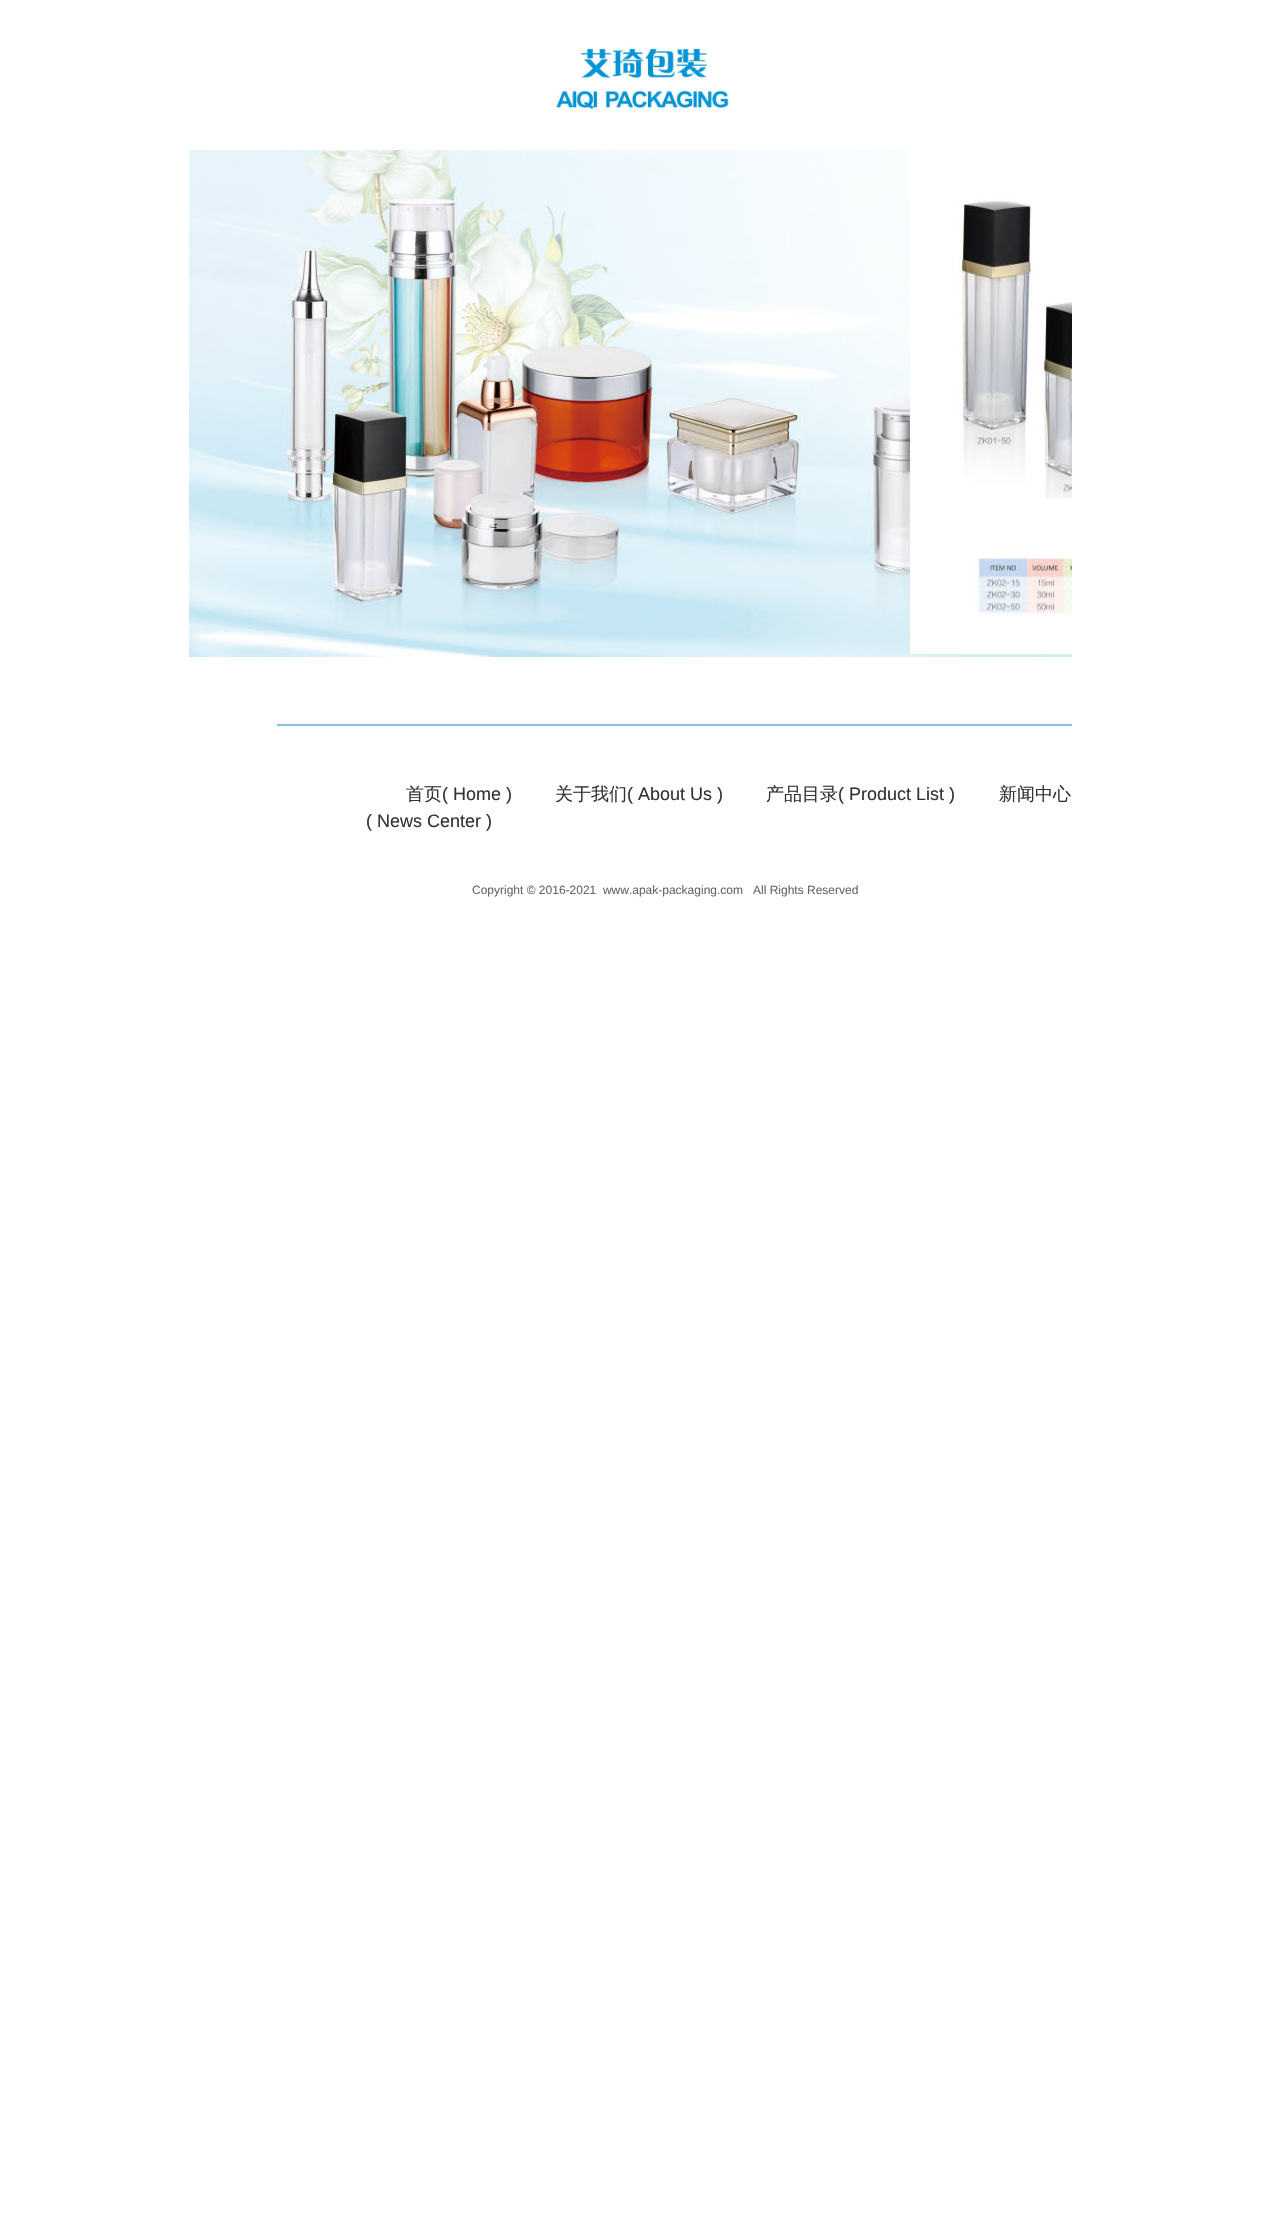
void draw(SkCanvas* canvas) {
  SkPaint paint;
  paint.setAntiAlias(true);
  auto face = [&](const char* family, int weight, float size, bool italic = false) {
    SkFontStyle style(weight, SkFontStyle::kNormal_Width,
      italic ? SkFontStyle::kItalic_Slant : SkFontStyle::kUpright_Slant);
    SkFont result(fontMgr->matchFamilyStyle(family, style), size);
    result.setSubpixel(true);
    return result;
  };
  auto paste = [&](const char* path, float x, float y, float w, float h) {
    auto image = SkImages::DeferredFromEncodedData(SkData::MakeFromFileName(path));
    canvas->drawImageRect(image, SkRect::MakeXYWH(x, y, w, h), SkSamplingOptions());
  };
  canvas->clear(0xffffffff);
  paste("img/1.png", 556, 47, 175, 63);
  paste("img/2.png", 189, 150, 883, 507);
  paste("img/3.png", 910, 150, 162, 504);
  paint.setColor(0xff87c2e3);
  canvas->drawRect(SkRect::MakeXYWH(277, 724, 795, 2), paint);
  auto f0 = face("WenQuanYi Zen Hei", 500, 18);
  paint.setColor(0xff333333);
  canvas->drawString("首页", 406, 800, f0, paint);
  auto f1 = face("Liberation Sans", 400, 18);
  canvas->drawString("( Home )", 442, 800, f1, paint);
  canvas->drawString("关于我们", 555, 800, f0, paint);
  canvas->drawString("( About Us )", 627, 800, f1, paint);
  canvas->drawString("产品目录", 766, 800, f0, paint);
  canvas->drawString("( Product List )", 838, 800, f1, paint);
  canvas->drawString("新闻中心", 999, 800, f0, paint);
  canvas->drawString("( News Center )", 366, 827, f1, paint);
  auto f2 = face("Liberation Sans", 400, 12);
  paint.setColor(0xff666666);
  canvas->drawString("Copyright © 2016-2021  www.apak-packaging.com   All Rights Reserved", 472, 894, f2, paint);
}
